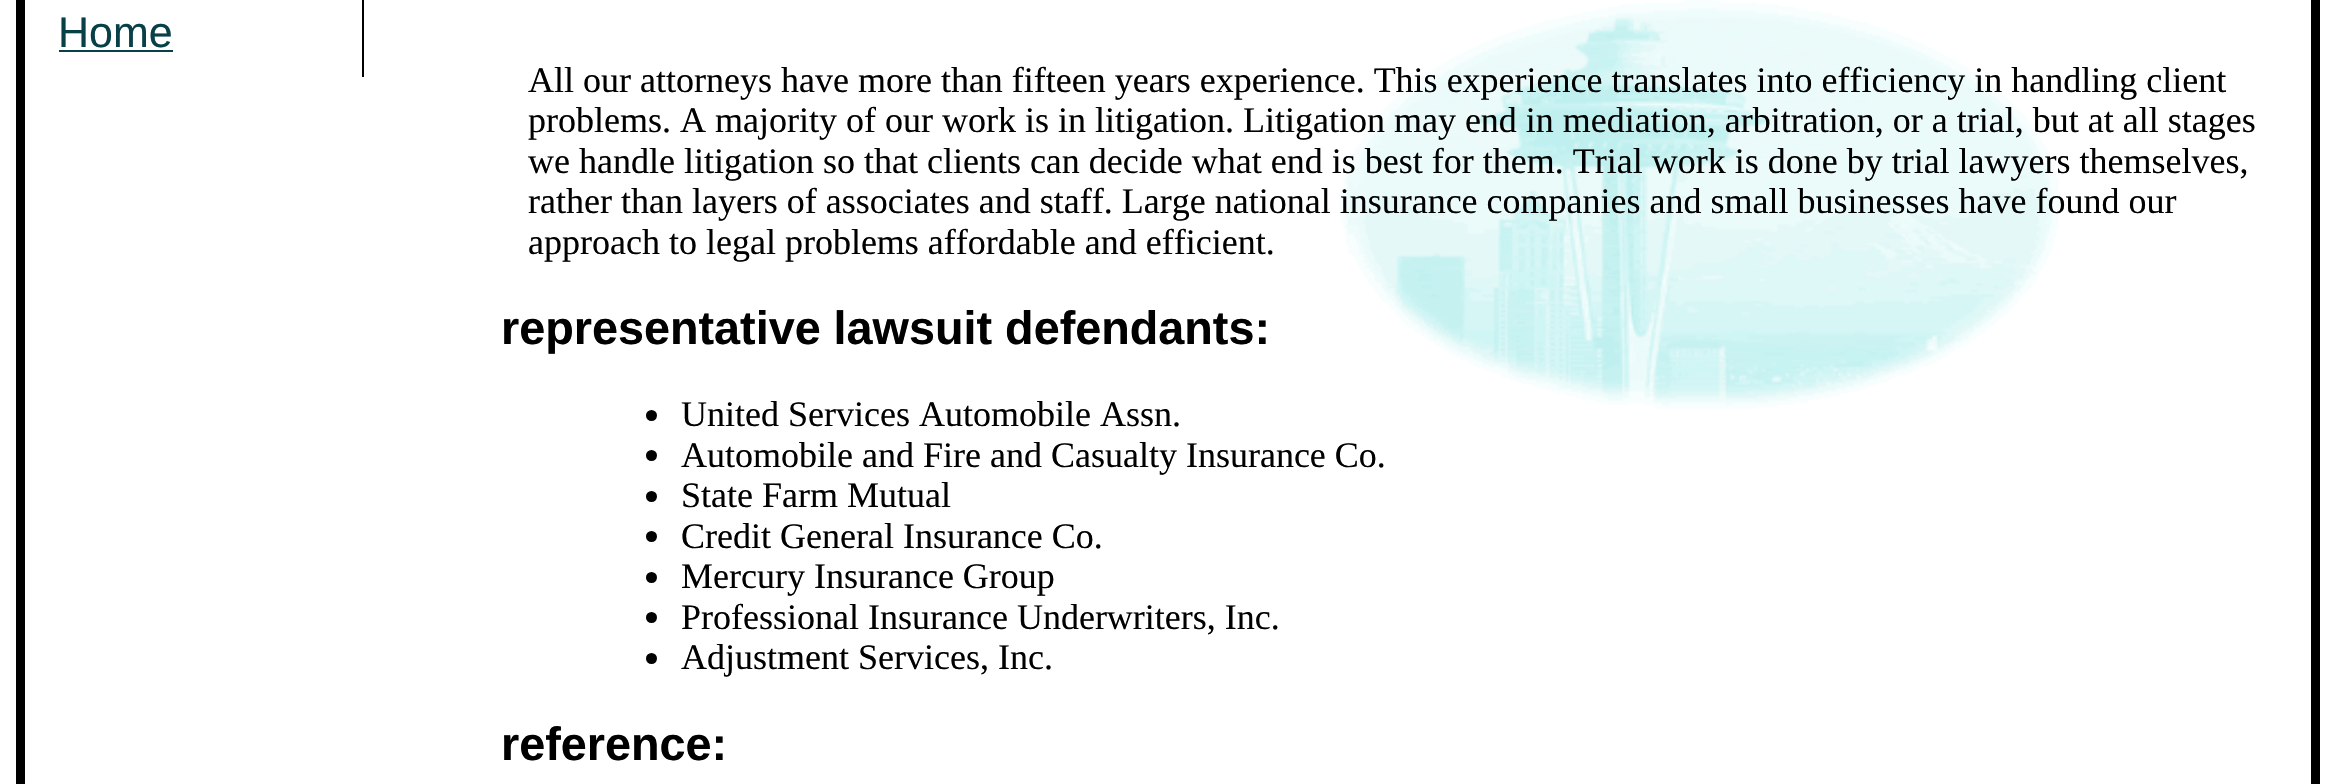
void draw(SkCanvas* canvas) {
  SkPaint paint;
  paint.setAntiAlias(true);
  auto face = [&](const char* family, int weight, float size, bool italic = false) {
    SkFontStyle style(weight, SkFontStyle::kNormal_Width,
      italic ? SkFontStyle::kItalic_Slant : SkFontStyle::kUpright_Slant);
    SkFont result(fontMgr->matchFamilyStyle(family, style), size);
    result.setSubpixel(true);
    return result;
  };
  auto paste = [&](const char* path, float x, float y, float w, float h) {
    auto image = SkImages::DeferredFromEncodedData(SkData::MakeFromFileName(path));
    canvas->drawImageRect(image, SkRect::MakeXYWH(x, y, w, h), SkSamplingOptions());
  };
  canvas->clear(0xffffffff);
  paint.setStroke(true);
  paint.setStrokeWidth(9);
  paint.setColor(0xff000000);
  canvas->drawRect(SkRect::MakeXYWH(20.5f, -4.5f, 2295, 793), paint);
  paint.setStroke(false);
  canvas->drawRect(SkRect::MakeXYWH(362, 0, 2, 77), paint);
  paint.setColor(0xff084048);
  canvas->drawRect(SkRect::MakeXYWH(59, 50, 114, 2), paint);
  paste("img/1.png", 1339, 0, 722, 409);
  paint.setColor(0xff000000);
  canvas->drawCircle(651.5f, 415.5f, 5.5f, paint);
  canvas->drawCircle(651.5f, 455.5f, 5.5f, paint);
  canvas->drawCircle(651.5f, 496.5f, 5.5f, paint);
  canvas->drawCircle(651.5f, 536.5f, 5.5f, paint);
  canvas->drawCircle(651.5f, 577.5f, 5.5f, paint);
  canvas->drawCircle(651.5f, 617.5f, 5.5f, paint);
  canvas->drawCircle(651.5f, 658.5f, 5.5f, paint);
  auto f0 = face("Liberation Sans", 400, 43);
  paint.setColor(0xff084048);
  canvas->drawString("Home", 58, 47, f0, paint);
  auto f1 = face("Liberation Serif", 400, 36);
  paint.setColor(0xff000000);
  {
    const struct { const char* s; float x, y; } items[] = {
      {"All our attorneys have more than fifteen years experience. This experience translates into efficiency in handling client", 528, 92},
      {"problems. A majority of our work is in litigation. Litigation may end in mediation, arbitration, or a trial, but at all stages", 528, 132},
      {"we handle litigation so that clients can decide what end is best for them. Trial work is done by trial lawyers themselves,", 528, 173},
      {"rather than layers of associates and staff. Large national insurance companies and small businesses have found our", 528, 213},
      {"approach to legal problems affordable and efficient.", 528, 254},
    };
    for (auto [s, x, y] : items) {
      canvas->drawString(s, x, y, f1, paint);
    }
  }
  auto f2 = face("Liberation Sans", 700, 46.75f);
  canvas->drawString("representative lawsuit defendants:", 501, 344, f2, paint);
  {
    const struct { const char* s; float x, y; } items[] = {
      {"United Services Automobile Assn.", 681, 426},
      {"Automobile and Fire and Casualty Insurance Co.", 681, 467},
      {"State Farm Mutual", 681, 507},
      {"Credit General Insurance Co.", 681, 548},
      {"Mercury Insurance Group", 681, 588},
      {"Professional Insurance Underwriters, Inc.", 681, 629},
      {"Adjustment Services, Inc.", 681, 669},
    };
    for (auto [s, x, y] : items) {
      canvas->drawString(s, x, y, f1, paint);
    }
  }
  canvas->drawString("reference:", 501, 760, f2, paint);
}
